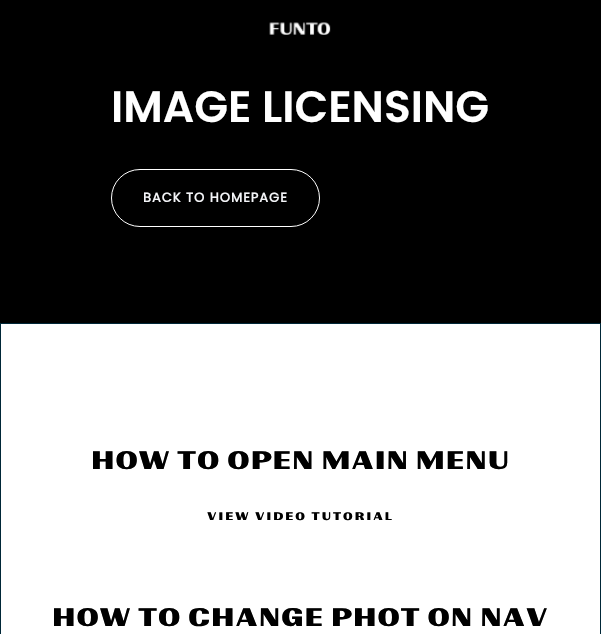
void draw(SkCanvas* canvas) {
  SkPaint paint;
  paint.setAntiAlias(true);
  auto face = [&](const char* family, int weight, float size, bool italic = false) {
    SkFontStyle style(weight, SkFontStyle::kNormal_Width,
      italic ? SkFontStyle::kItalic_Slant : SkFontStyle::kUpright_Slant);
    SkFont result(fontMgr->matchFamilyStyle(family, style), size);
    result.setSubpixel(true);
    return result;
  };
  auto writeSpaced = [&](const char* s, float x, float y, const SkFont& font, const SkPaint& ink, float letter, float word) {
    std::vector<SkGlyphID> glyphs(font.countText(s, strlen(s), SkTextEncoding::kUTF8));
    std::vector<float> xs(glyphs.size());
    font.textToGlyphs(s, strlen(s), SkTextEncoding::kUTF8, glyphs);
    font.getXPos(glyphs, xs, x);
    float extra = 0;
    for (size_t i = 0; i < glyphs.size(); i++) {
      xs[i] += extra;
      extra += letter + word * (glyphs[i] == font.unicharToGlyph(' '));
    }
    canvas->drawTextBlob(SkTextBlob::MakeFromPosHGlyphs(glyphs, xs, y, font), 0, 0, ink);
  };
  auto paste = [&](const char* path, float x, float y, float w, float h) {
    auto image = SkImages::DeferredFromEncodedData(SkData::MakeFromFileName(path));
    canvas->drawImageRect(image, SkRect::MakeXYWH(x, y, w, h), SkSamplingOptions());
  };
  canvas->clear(0xffffffff);
  paint.setColor(0xff000000);
  canvas->drawRect(SkRect::MakeXYWH(0, 0, 601, 323), paint);
  paste("img/1.png", 269, 22, 62, 13);
  paint.setStroke(true);
  paint.setStrokeWidth(1);
  paint.setColor(0xffffffff);
  canvas->drawRoundRect(SkRect::MakeXYWH(111.5f, 169.5f, 208, 57), 28.5f, 28.5f, paint);
  paint.setColor(0xff002737);
  canvas->drawRect(SkRect::MakeXYWH(0.5f, 323.5f, 600, 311), paint);
  auto f0 = face("Poppins", 600, 44);
  paint.setStroke(false);
  paint.setColor(0xffffffff);
  canvas->drawString("IMAGE LICENSING", 111, 122, f0, paint);
  auto f1 = face("Poppins", 700, 13);
  paint.setColor(0xfff4f5f8);
  writeSpaced("BACK TO HOMEPAGE", 143, 202, f1, paint, 1, 0);
  auto f2 = face("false", 700, 30);
  paint.setColor(0xff000000);
  writeSpaced("HOW TO OPEN MAIN MENU", 91, 469, f2, paint, 1, 0);
  auto f3 = face("false", 700, 13);
  writeSpaced("VIEW VIDEO TUTORIAL", 207, 520, f3, paint, 2, 0);
  writeSpaced("HOW TO CHANGE PHOT ON NAV", 52, 626, f2, paint, 1, 0);
}
